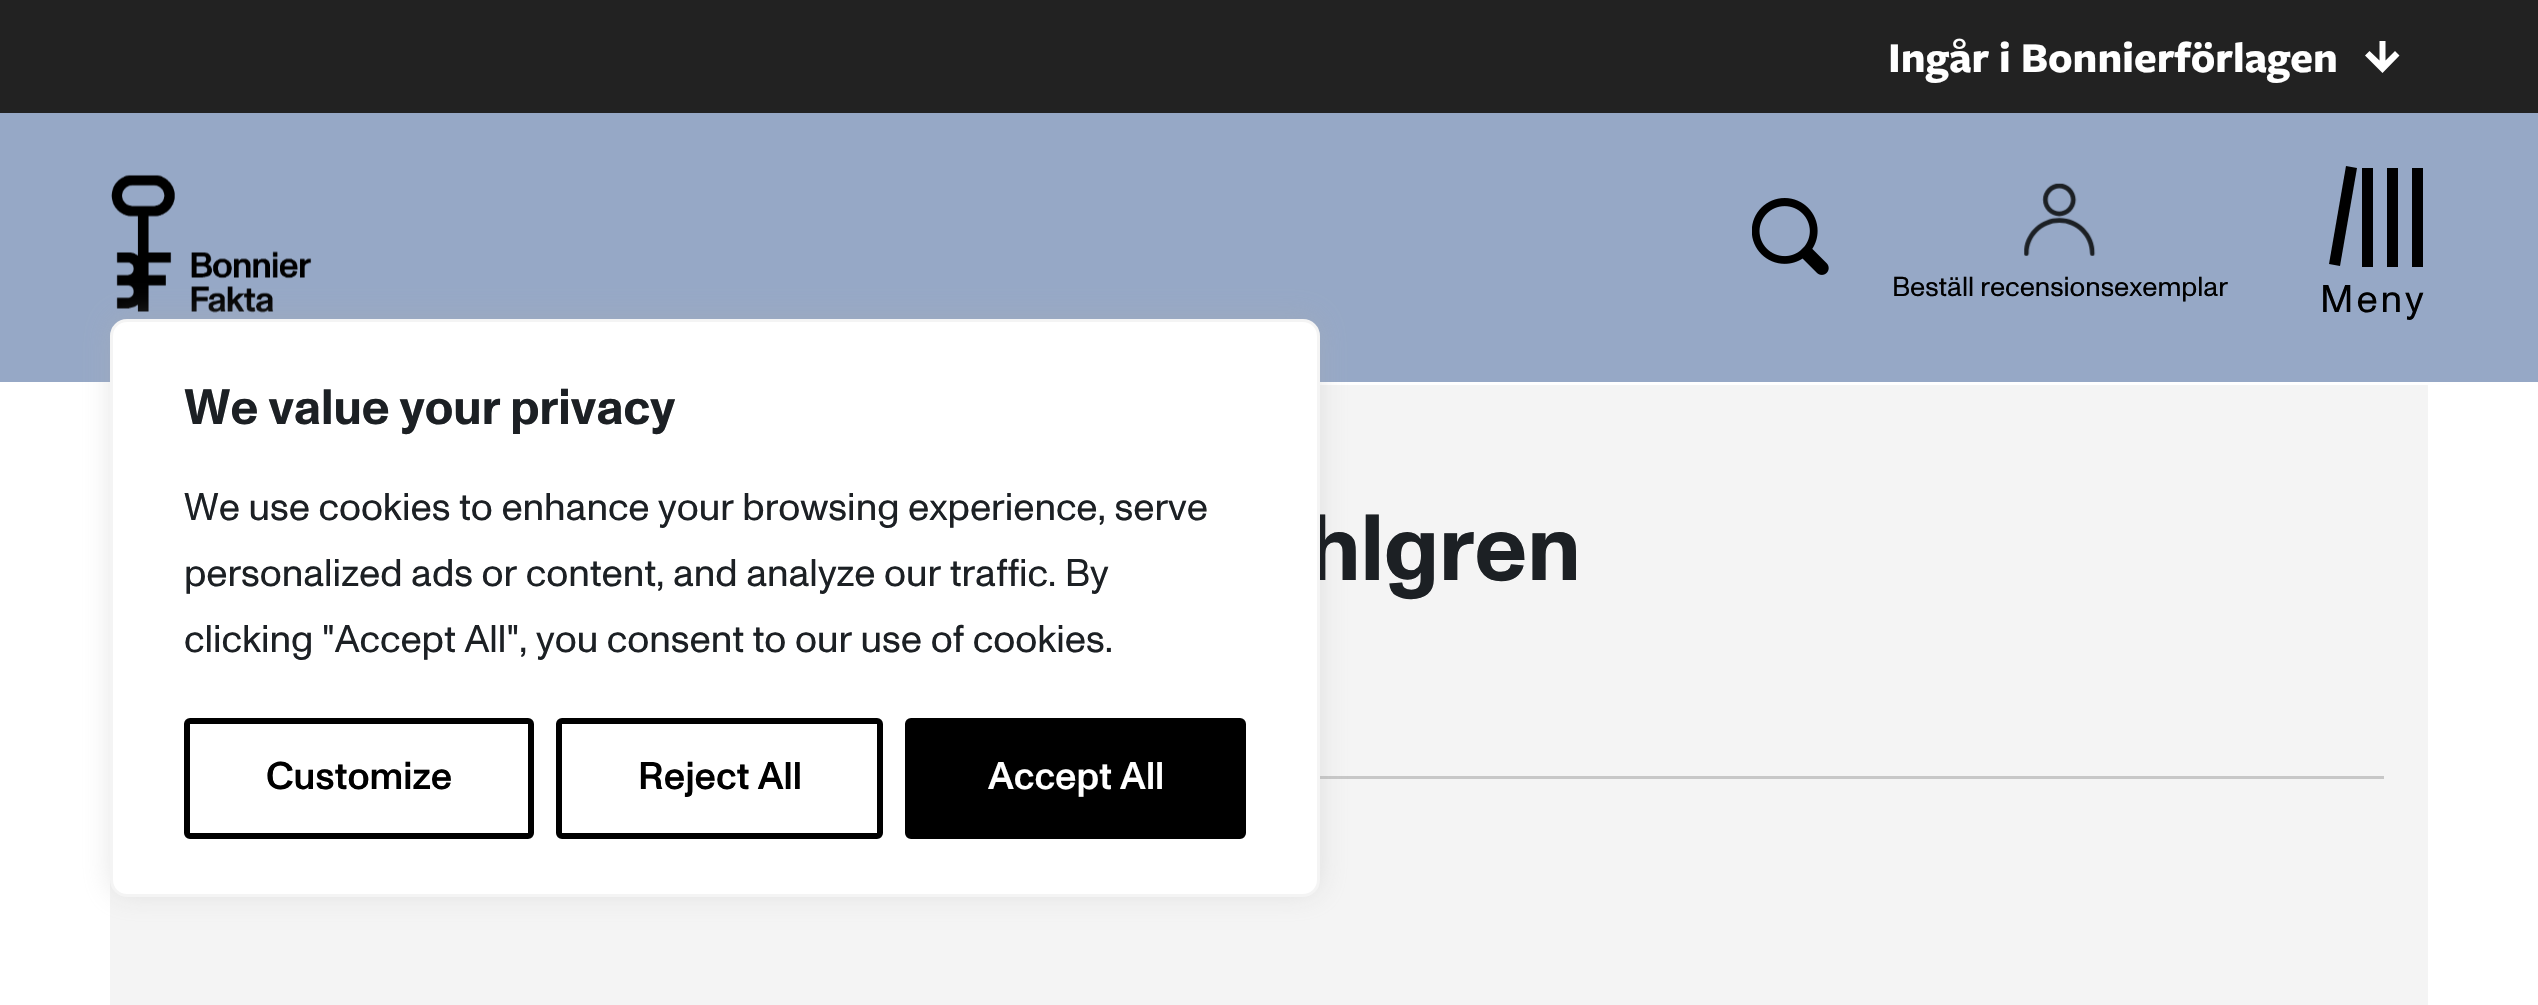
void draw(SkCanvas* canvas) {
  SkPaint paint;
  paint.setAntiAlias(true);
  auto face = [&](const char* family, int weight, float size, bool italic = false) {
    SkFontStyle style(weight, SkFontStyle::kNormal_Width,
      italic ? SkFontStyle::kItalic_Slant : SkFontStyle::kUpright_Slant);
    SkFont result(fontMgr->matchFamilyStyle(family, style), size);
    result.setSubpixel(true);
    return result;
  };
  auto writeSpaced = [&](const char* s, float x, float y, const SkFont& font, const SkPaint& ink, float letter, float word) {
    std::vector<SkGlyphID> glyphs(font.countText(s, strlen(s), SkTextEncoding::kUTF8));
    std::vector<float> xs(glyphs.size());
    font.textToGlyphs(s, strlen(s), SkTextEncoding::kUTF8, glyphs);
    font.getXPos(glyphs, xs, x);
    float extra = 0;
    for (size_t i = 0; i < glyphs.size(); i++) {
      xs[i] += extra;
      extra += letter + word * (glyphs[i] == font.unicharToGlyph(' '));
    }
    canvas->drawTextBlob(SkTextBlob::MakeFromPosHGlyphs(glyphs, xs, y, font), 0, 0, ink);
  };
  auto paste = [&](const char* path, float x, float y, float w, float h) {
    auto image = SkImages::DeferredFromEncodedData(SkData::MakeFromFileName(path));
    canvas->drawImageRect(image, SkRect::MakeXYWH(x, y, w, h), SkSamplingOptions());
  };
  auto shape = [&](const char* data, bool evenOdd = false) {
    SkPath result = *SkParsePath::FromSVGString(data);
    if (evenOdd) result.setFillType(SkPathFillType::kEvenOdd);
    return result;
  };
  canvas->clear(0xffffffff);
  paint.setColor(0xff96a8c6);
  canvas->drawRect(SkRect::MakeXYWH(0, 113, 2538, 269), paint);
  paste("img/1.png", 111, 174, 201, 139);
  paint.setColor(0xfff4f4f4);
  canvas->drawRect(SkRect::MakeXYWH(110, 385, 2318, 620), paint);
  paint.setColor(0xffc7c7c7);
  canvas->drawRect(SkRect::MakeXYWH(1320, 776, 1064, 3), paint);
  paint.setColor(0x4dacabab);
  paint.setMaskFilter(SkMaskFilter::MakeBlur(kNormal_SkBlurStyle, 14));
  canvas->drawRoundRect(SkRect::MakeXYWH(110, 316, 1210, 578), 17, 17, paint);
  paint.setMaskFilter(nullptr);
  paint.setColor(0xff222222);
  canvas->drawRect(SkRect::MakeXYWH(0, 0, 2538, 113), paint);
  paint.setColor(0xffffffff);
  canvas->drawPath(shape("M2365 55.5L2382.5 73L2399.5 55.5L2395 51L2385.5 60.5V41H2379.5V60.5L2369.5 51Z", true), paint);
  paste("img/2.png", 1752, 198, 77, 77);
  paste("img/3.png", 2024, 183, 72, 73);
  paint.setColor(0xff000000);
  canvas->drawPath(shape("M2346 166L2357 168L2340 266L2329 264Z"), paint);
  {
    const struct { float x, y, w, h; SkColor color; } items[] = {
      {2362, 168, 11, 99, 0xff000000},
      {2387, 168, 11, 99, 0xff000000},
      {2412, 168, 11, 99, 0xff000000},
    };
    for (auto [x, y, w, h, color] : items) {
      paint.setColor(color);
      canvas->drawRect(SkRect::MakeXYWH(x, y, w, h), paint);
    }
  }
  auto f0 = face("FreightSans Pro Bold", 700, 44);
  paint.setColor(0xffffffff);
  canvas->drawString("Ingår i Bonnierförlagen", 1888, 72, f0, paint);
  auto f1 = face("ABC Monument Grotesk", 400, 27.5f);
  paint.setColor(0xff000000);
  canvas->drawString("Beställ recensionsexemplar", 1892, 296, f1, paint);
  auto f2 = face("ABC Monument Grotesk", 400, 38.5f);
  writeSpaced("Meny", 2320, 312, f2, paint, 3, 0);
  auto f3 = face("ABC Monument Grotesk", 700, 93.5f);
  paint.setColor(0xff1c2024);
  canvas->drawString("hlgren", 1307, 580, f3, paint);
  paint.setColor(0xffffffff);
  canvas->drawRoundRect(SkRect::MakeXYWH(111.5f, 320.5f, 1207, 575), 15.5f, 15.5f, paint);
  paint.setStroke(true);
  paint.setStrokeWidth(3);
  paint.setColor(0xfff4f4f4);
  canvas->drawRoundRect(SkRect::MakeXYWH(111.5f, 320.5f, 1207, 575), 15.5f, 15.5f, paint);
  paint.setStroke(false);
  paint.setColor(0xff000000);
  canvas->drawRoundRect(SkRect::MakeXYWH(908, 721, 335, 115), 3, 3, paint);
  paint.setStroke(true);
  paint.setStrokeWidth(6);
  canvas->drawRoundRect(SkRect::MakeXYWH(908, 721, 335, 115), 3, 3, paint);
  auto f4 = face("ABC Monument Grotesk", 500, 38.5f);
  paint.setStroke(false);
  paint.setColor(0xffffffff);
  canvas->drawString("Accept All", 988, 789, f4, paint);
  paint.setStroke(true);
  paint.setColor(0xff000000);
  canvas->drawRoundRect(SkRect::MakeXYWH(559, 721, 321, 115), 3, 3, paint);
  paint.setStroke(false);
  canvas->drawString("Reject All", 638, 789, f4, paint);
  paint.setStroke(true);
  canvas->drawRoundRect(SkRect::MakeXYWH(187, 721, 344, 115), 3, 3, paint);
  paint.setStroke(false);
  canvas->drawString("Customize", 266, 789, f4, paint);
  paint.setColor(0xff1c2024);
  {
    const struct { const char* s; float x, y; } items[] = {
      {"clicking \"Accept All\", you consent to our use of cookies.", 184, 652},
      {"personalized ads or content, and analyze our traffic. By", 184, 586},
      {"We use cookies to enhance your browsing experience, serve", 184, 520},
    };
    for (auto [s, x, y] : items) {
      canvas->drawString(s, x, y, f2, paint);
    }
  }
  auto f5 = face("ABC Monument Grotesk", 700, 49.5f);
  canvas->drawString("We value your privacy", 184, 424, f5, paint);
}
